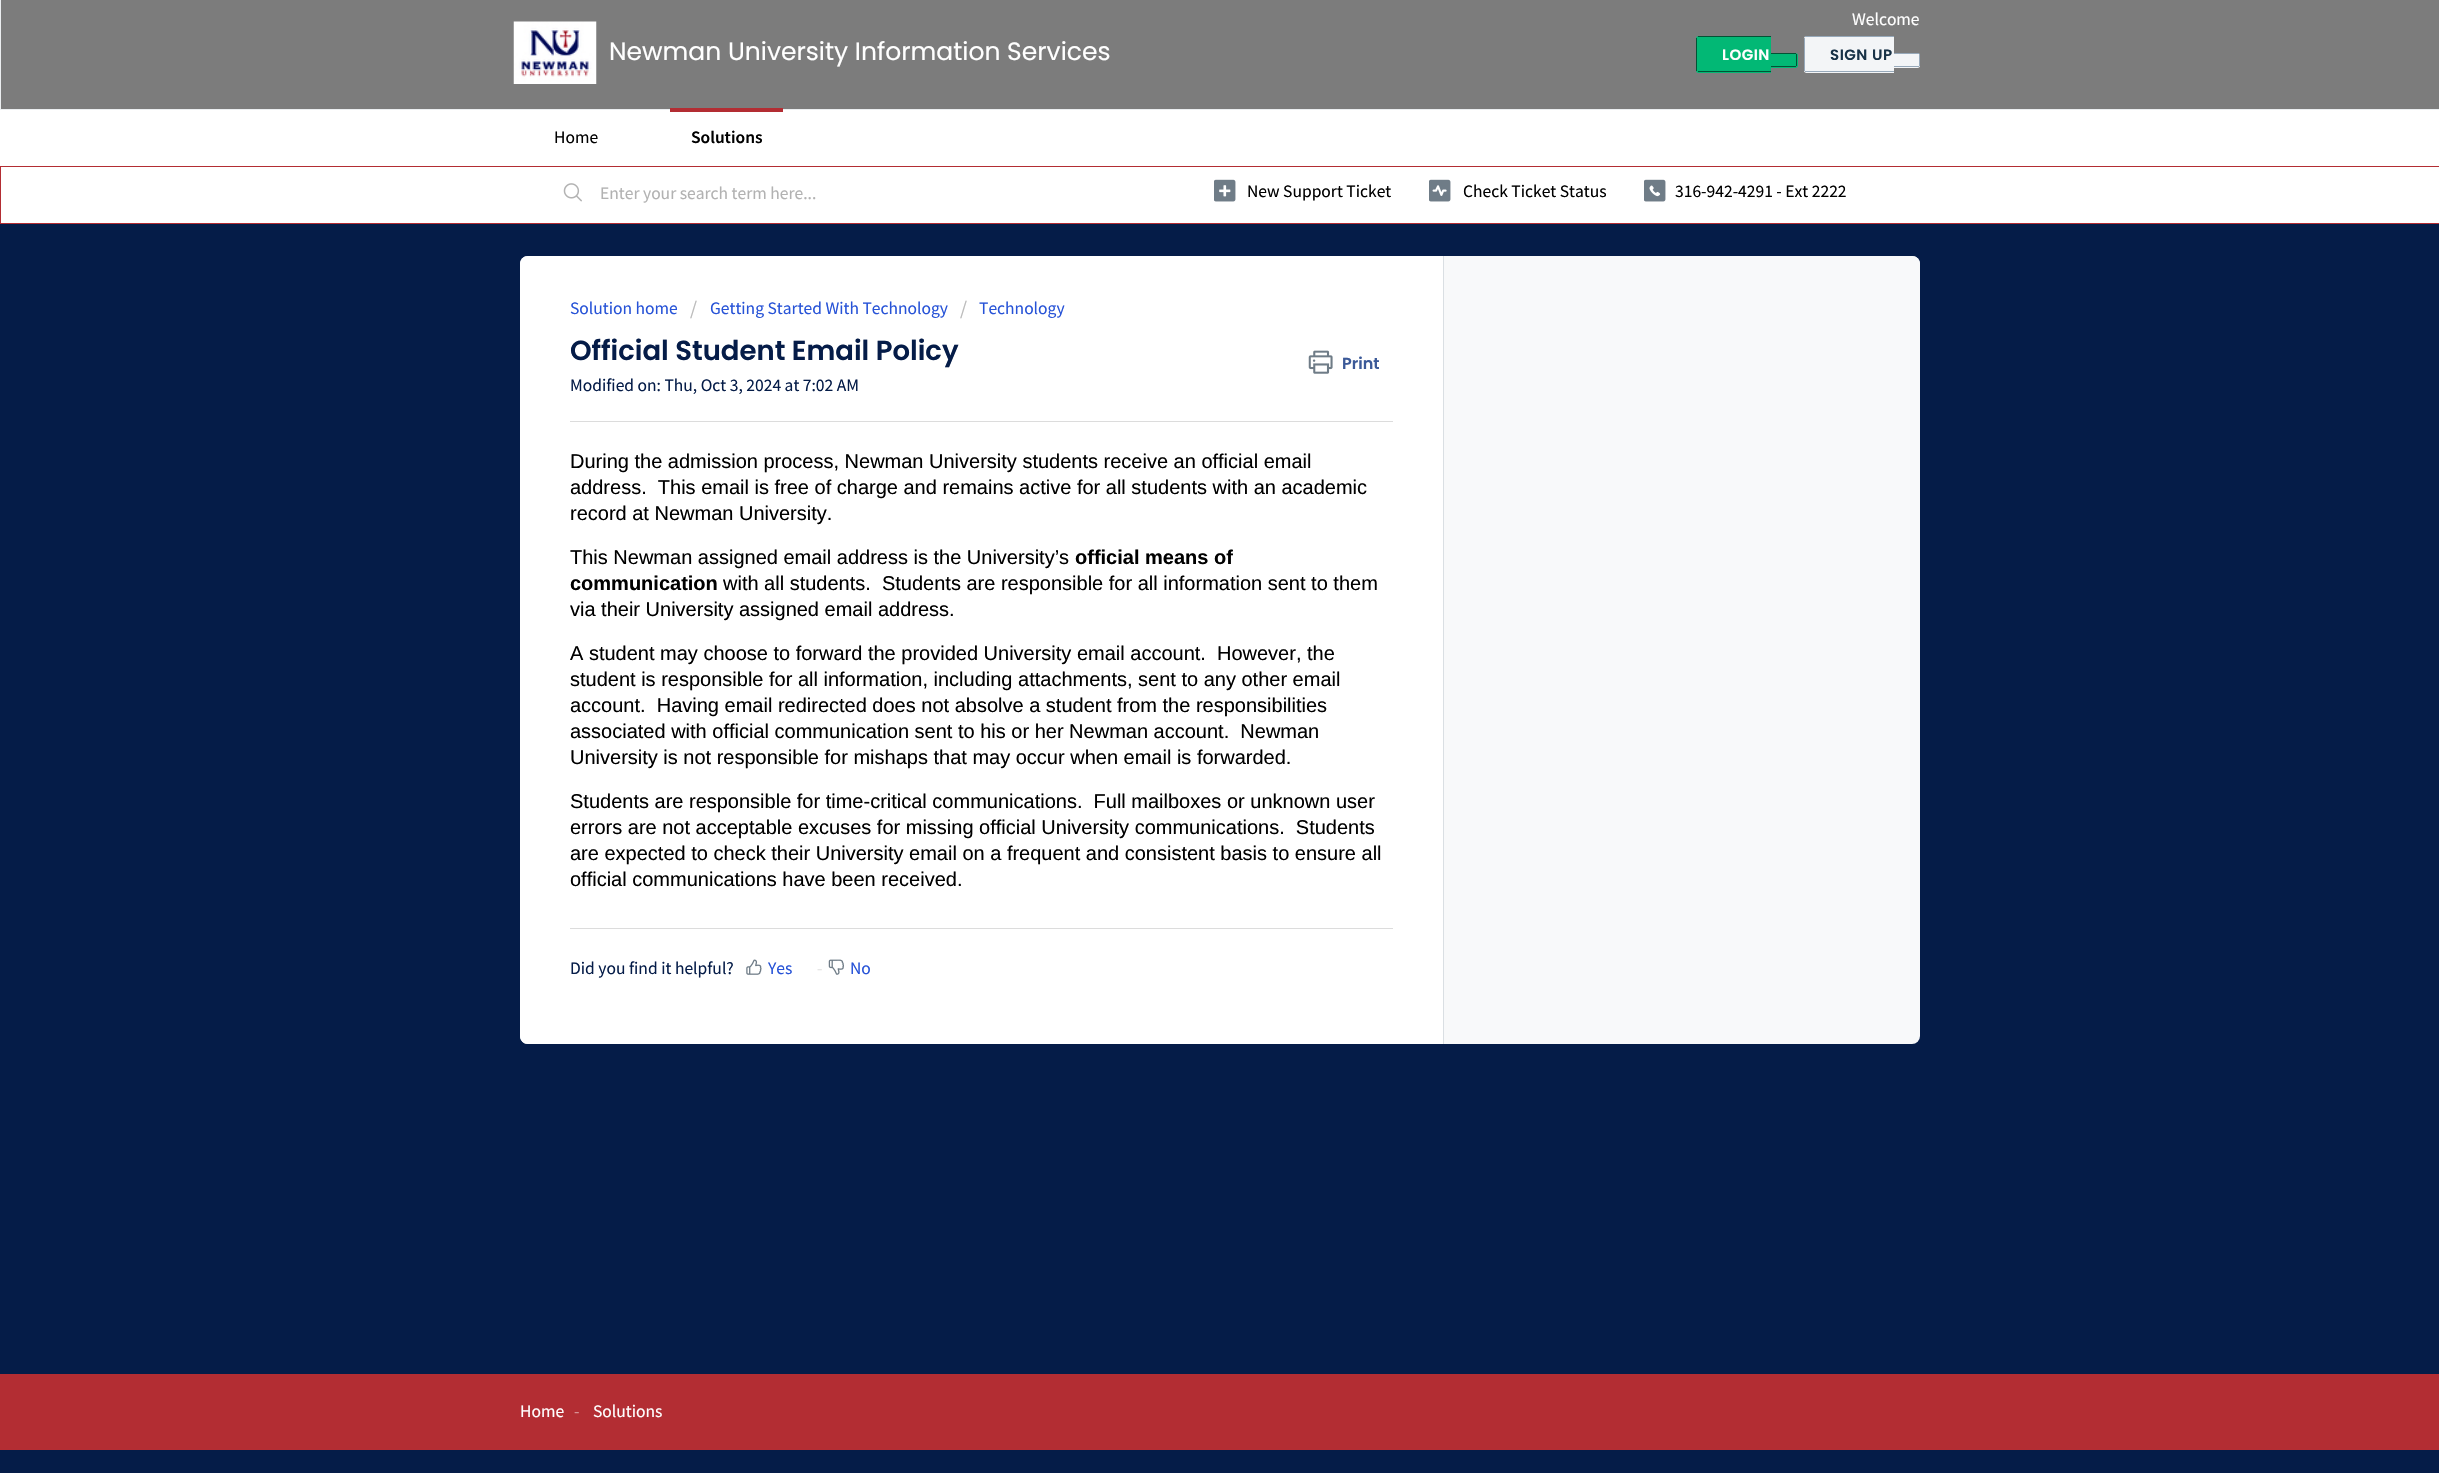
void draw(SkCanvas* canvas) {
  SkPaint paint;
  paint.setAntiAlias(true);
  auto face = [&](const char* family, int weight, float size, bool italic = false) {
    SkFontStyle style(weight, SkFontStyle::kNormal_Width,
      italic ? SkFontStyle::kItalic_Slant : SkFontStyle::kUpright_Slant);
    SkFont result(fontMgr->matchFamilyStyle(family, style), size);
    result.setSubpixel(true);
    return result;
  };
  auto writeSpaced = [&](const char* s, float x, float y, const SkFont& font, const SkPaint& ink, float letter, float word) {
    std::vector<SkGlyphID> glyphs(font.countText(s, strlen(s), SkTextEncoding::kUTF8));
    std::vector<float> xs(glyphs.size());
    font.textToGlyphs(s, strlen(s), SkTextEncoding::kUTF8, glyphs);
    font.getXPos(glyphs, xs, x);
    float extra = 0;
    for (size_t i = 0; i < glyphs.size(); i++) {
      xs[i] += extra;
      extra += letter + word * (glyphs[i] == font.unicharToGlyph(' '));
    }
    canvas->drawTextBlob(SkTextBlob::MakeFromPosHGlyphs(glyphs, xs, y, font), 0, 0, ink);
  };
  auto paste = [&](const char* path, float x, float y, float w, float h) {
    auto image = SkImages::DeferredFromEncodedData(SkData::MakeFromFileName(path));
    canvas->drawImageRect(image, SkRect::MakeXYWH(x, y, w, h), SkSamplingOptions());
  };
  auto shape = [&](const char* data, bool evenOdd = false) {
    SkPath result = *SkParsePath::FromSVGString(data);
    if (evenOdd) result.setFillType(SkPathFillType::kEvenOdd);
    return result;
  };
  canvas->clear(0xff051c48);
  paint.setColor(0xff7c7c7c);
  canvas->drawRect(SkRect::MakeXYWH(0.5f, -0.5f, 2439, 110), paint);
  paint.setStroke(true);
  paint.setStrokeWidth(1);
  paint.setColor(0xffebeef0);
  canvas->drawRect(SkRect::MakeXYWH(0.5f, -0.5f, 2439, 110), paint);
  paste("img/1.png", 513, 21, 84, 63);
  paint.setStroke(false);
  paint.setColor(0xff02b875);
  canvas->drawPath(shape("M1698.5 36H1771V73H1698.5C1697 73 1696 72 1696 70.5V38.5C1696 37 1697 36 1698.5 36Z"), paint);
  {
    const struct { float x, y, w, h; SkColor color; } items[] = {
      {1698, 36, 73, 1, 0xff015335},
      {1698, 71, 73, 1, 0xff015335},
      {1696, 38, 1, 33, 0xff015335},
    };
    for (auto [x, y, w, h, color] : items) {
      paint.setColor(color);
      canvas->drawRect(SkRect::MakeXYWH(x, y, w, h), paint);
    }
  }
  paint.setColor(0xff02b875);
  canvas->drawPath(shape("M1771 53H1795.5C1797 53 1798 54 1798 55.5V65.5C1798 67 1797 68 1795.5 68H1771Z"), paint);
  {
    const struct { float x, y, w, h; SkColor color; } items[] = {
      {1771, 53, 25, 1, 0xff015335},
      {1796, 54, 1, 12, 0xff015335},
      {1771, 66, 25, 1, 0xff015335},
    };
    for (auto [x, y, w, h, color] : items) {
      paint.setColor(color);
      canvas->drawRect(SkRect::MakeXYWH(x, y, w, h), paint);
    }
  }
  paint.setColor(0xfff3f5f7);
  canvas->drawPath(shape("M1806.5 36H1894V73H1806.5C1805 73 1804 72 1804 70.5V38.5C1804 37 1805 36 1806.5 36Z"), paint);
  {
    const struct { float x, y, w, h; SkColor color; } items[] = {
      {1805, 36, 89, 1, 0xff97a9ba},
      {1805, 71, 89, 1, 0xff97a9ba},
      {1804, 38, 1, 33, 0xff97a9ba},
    };
    for (auto [x, y, w, h, color] : items) {
      paint.setColor(color);
      canvas->drawRect(SkRect::MakeXYWH(x, y, w, h), paint);
    }
  }
  paint.setColor(0xfff3f5f7);
  canvas->drawPath(shape("M1894 53H1917.5C1919 53 1920 54 1920 55.5V65.5C1920 67 1919 68 1917.5 68H1894Z"), paint);
  {
    const struct { float x, y, w, h; SkColor color; } items[] = {
      {1894, 53, 25, 1, 0xff97a9ba},
      {1919, 54, 1, 12, 0xff97a9ba},
      {1894, 66, 25, 1, 0xff97a9ba},
      {0, 110, 2439, 56, 0xffffffff},
      {670, 108, 113, 4, 0xffb32d33},
    };
    for (auto [x, y, w, h, color] : items) {
      paint.setColor(color);
      canvas->drawRect(SkRect::MakeXYWH(x, y, w, h), paint);
    }
  }
  paint.setColor(0xffffffff);
  canvas->drawRect(SkRect::MakeXYWH(0.5f, 166.5f, 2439, 57), paint);
  paint.setStroke(true);
  paint.setColor(0xffb32d33);
  canvas->drawRect(SkRect::MakeXYWH(0.5f, 166.5f, 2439, 57), paint);
  paste("img/2.png", 563, 183, 19, 19);
  paste("img/3.png", 1214, 179, 22, 23);
  paste("img/4.png", 1429, 179, 22, 23);
  paste("img/5.png", 1644, 179, 22, 23);
  paint.setStroke(false);
  paint.setColor(0xfff8f9fa);
  canvas->drawRoundRect(SkRect::MakeXYWH(520, 256, 1400, 788), 8, 8, paint);
  canvas->drawPath(shape("M1444 256H1912C1916.5 256 1920 259.5 1920 264V273C1920 277.5 1916.5 281 1912 281H1444Z"), paint);
  paint.setColor(0xffffffff);
  canvas->drawPath(shape("M528 256H1444V1044H528C523.5 1044 520 1040.5 520 1036V264C520 259.5 523.5 256 528 256Z"), paint);
  paint.setColor(0xffdadfe3);
  canvas->drawRect(SkRect::MakeXYWH(1443, 256, 1, 788), paint);
  paste("img/6.png", 1308, 350, 25, 24);
  paint.setColor(0xffdcdcdc);
  canvas->drawRect(SkRect::MakeXYWH(570, 421, 823, 1), paint);
  canvas->drawRect(SkRect::MakeXYWH(570, 928, 823, 1), paint);
  paste("img/7.png", 746, 959, 16, 16);
  paste("img/8.png", 828, 959, 16, 16);
  paint.setColor(0xffb32d33);
  canvas->drawRect(SkRect::MakeXYWH(0, 1374, 2439, 76), paint);
  auto f0 = face("Poppins", 400, 25);
  paint.setColor(0xffffffff);
  canvas->drawString("Newman University Information Services", 609, 60, f0, paint);
  auto f1 = face("Source Sans Pro", 400, 17.5f);
  canvas->drawString("Welcome", 1852, 25, f1, paint);
  auto f2 = face("Poppins", 600, 15);
  writeSpaced("LOGIN", 1722, 60, f2, paint, 0.5f, 0);
  paint.setColor(0xff183247);
  writeSpaced("SIGN UP", 1830, 60, f2, paint, 0.5f, 0);
  paint.setColor(0xff000000);
  canvas->drawString("Home", 554, 143, f1, paint);
  auto f3 = face("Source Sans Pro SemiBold", 600, 17.5f);
  canvas->drawString("Solutions", 691, 143, f3, paint);
  paint.setColor(0xffb2b2b2);
  canvas->drawString("Enter your search term here...", 600, 199, f1, paint);
  paint.setColor(0xff000000);
  {
    const struct { const char* s; float x, y; } items[] = {
      {"New Support Ticket", 1247, 197},
      {"Check Ticket Status", 1463, 197},
      {"316-942-4291 - Ext 2222", 1675, 197},
    };
    for (auto [s, x, y] : items) {
      canvas->drawString(s, x, y, f1, paint);
    }
  }
  paint.setColor(0xff2753d7);
  canvas->drawString("Solution home", 570, 314, f1, paint);
  auto f4 = face("Source Sans Pro", 400, 20);
  paint.setColor(0xffbbbbbb);
  canvas->drawString("/", 690, 315, f4, paint);
  paint.setColor(0xff2753d7);
  canvas->drawString("Getting Started With Technology", 710, 314, f1, paint);
  paint.setColor(0xffbbbbbb);
  canvas->drawString("/", 960, 315, f4, paint);
  paint.setColor(0xff2753d7);
  canvas->drawString("Technology", 979, 314, f1, paint);
  auto f5 = face("Poppins", 600, 27.5f);
  paint.setColor(0xff051c48);
  canvas->drawString("Official Student Email Policy", 570, 360, f5, paint);
  auto f6 = face("Poppins", 600, 16);
  paint.setColor(0xff3b5998);
  canvas->drawString("Print", 1342, 369, f6, paint);
  paint.setColor(0xff051c48);
  canvas->drawString("Modified on: Thu, Oct 3, 2024 at 7:02 AM", 570, 391, f1, paint);
  auto f7 = face("Liberation Sans", 400, 20);
  paint.setColor(0xff000000);
  {
    const struct { const char* s; float x, y; } items[] = {
      {"During the admission process, Newman University students receive an official email", 570, 468},
      {"address.  This email is free of charge and remains active for all students with an academic", 570, 494},
      {"record at Newman University.", 570, 520},
      {"This Newman assigned email address is the University’s", 570, 564},
    };
    for (auto [s, x, y] : items) {
      canvas->drawString(s, x, y, f7, paint);
    }
  }
  auto f8 = face("Liberation Sans", 700, 20);
  canvas->drawString("official means of", 1075, 564, f8, paint);
  canvas->drawString("communication", 570, 590, f8, paint);
  {
    const struct { const char* s; float x, y; } items[] = {
      {"with all students.  Students are responsible for all information sent to them", 723, 590},
      {"via their University assigned email address.", 570, 616},
      {"A student may choose to forward the provided University email account.  However, the", 570, 660},
      {"student is responsible for all information, including attachments, sent to any other email", 570, 686},
      {"account.  Having email redirected does not absolve a student from the responsibilities", 570, 712},
      {"associated with official communication sent to his or her Newman account.  Newman", 570, 738},
      {"University is not responsible for mishaps that may occur when email is forwarded.", 570, 764},
      {"Students are responsible for time-critical communications.  Full mailboxes or unknown user", 570, 808},
      {"errors are not acceptable excuses for missing official University communications.  Students", 570, 834},
      {"are expected to check their University email on a frequent and consistent basis to ensure all", 570, 860},
      {"official communications have been received.", 570, 886},
    };
    for (auto [s, x, y] : items) {
      canvas->drawString(s, x, y, f7, paint);
    }
  }
  paint.setColor(0xff051c48);
  canvas->drawString("Did you find it helpful?", 570, 974, f1, paint);
  paint.setColor(0xff2753d7);
  canvas->drawString("Yes", 768, 974, f1, paint);
  paint.setColor(0xffe5e5e5);
  canvas->drawString("-", 817, 974, f1, paint);
  paint.setColor(0xff2753d7);
  canvas->drawString("No", 850, 974, f1, paint);
  paint.setColor(0xffffffff);
  canvas->drawString("Home", 520, 1417, f1, paint);
  paint.setColor(0xffd99699);
  canvas->drawString("-", 574, 1417, f1, paint);
  paint.setColor(0xffffffff);
  canvas->drawString("Solutions", 593, 1417, f1, paint);
}
